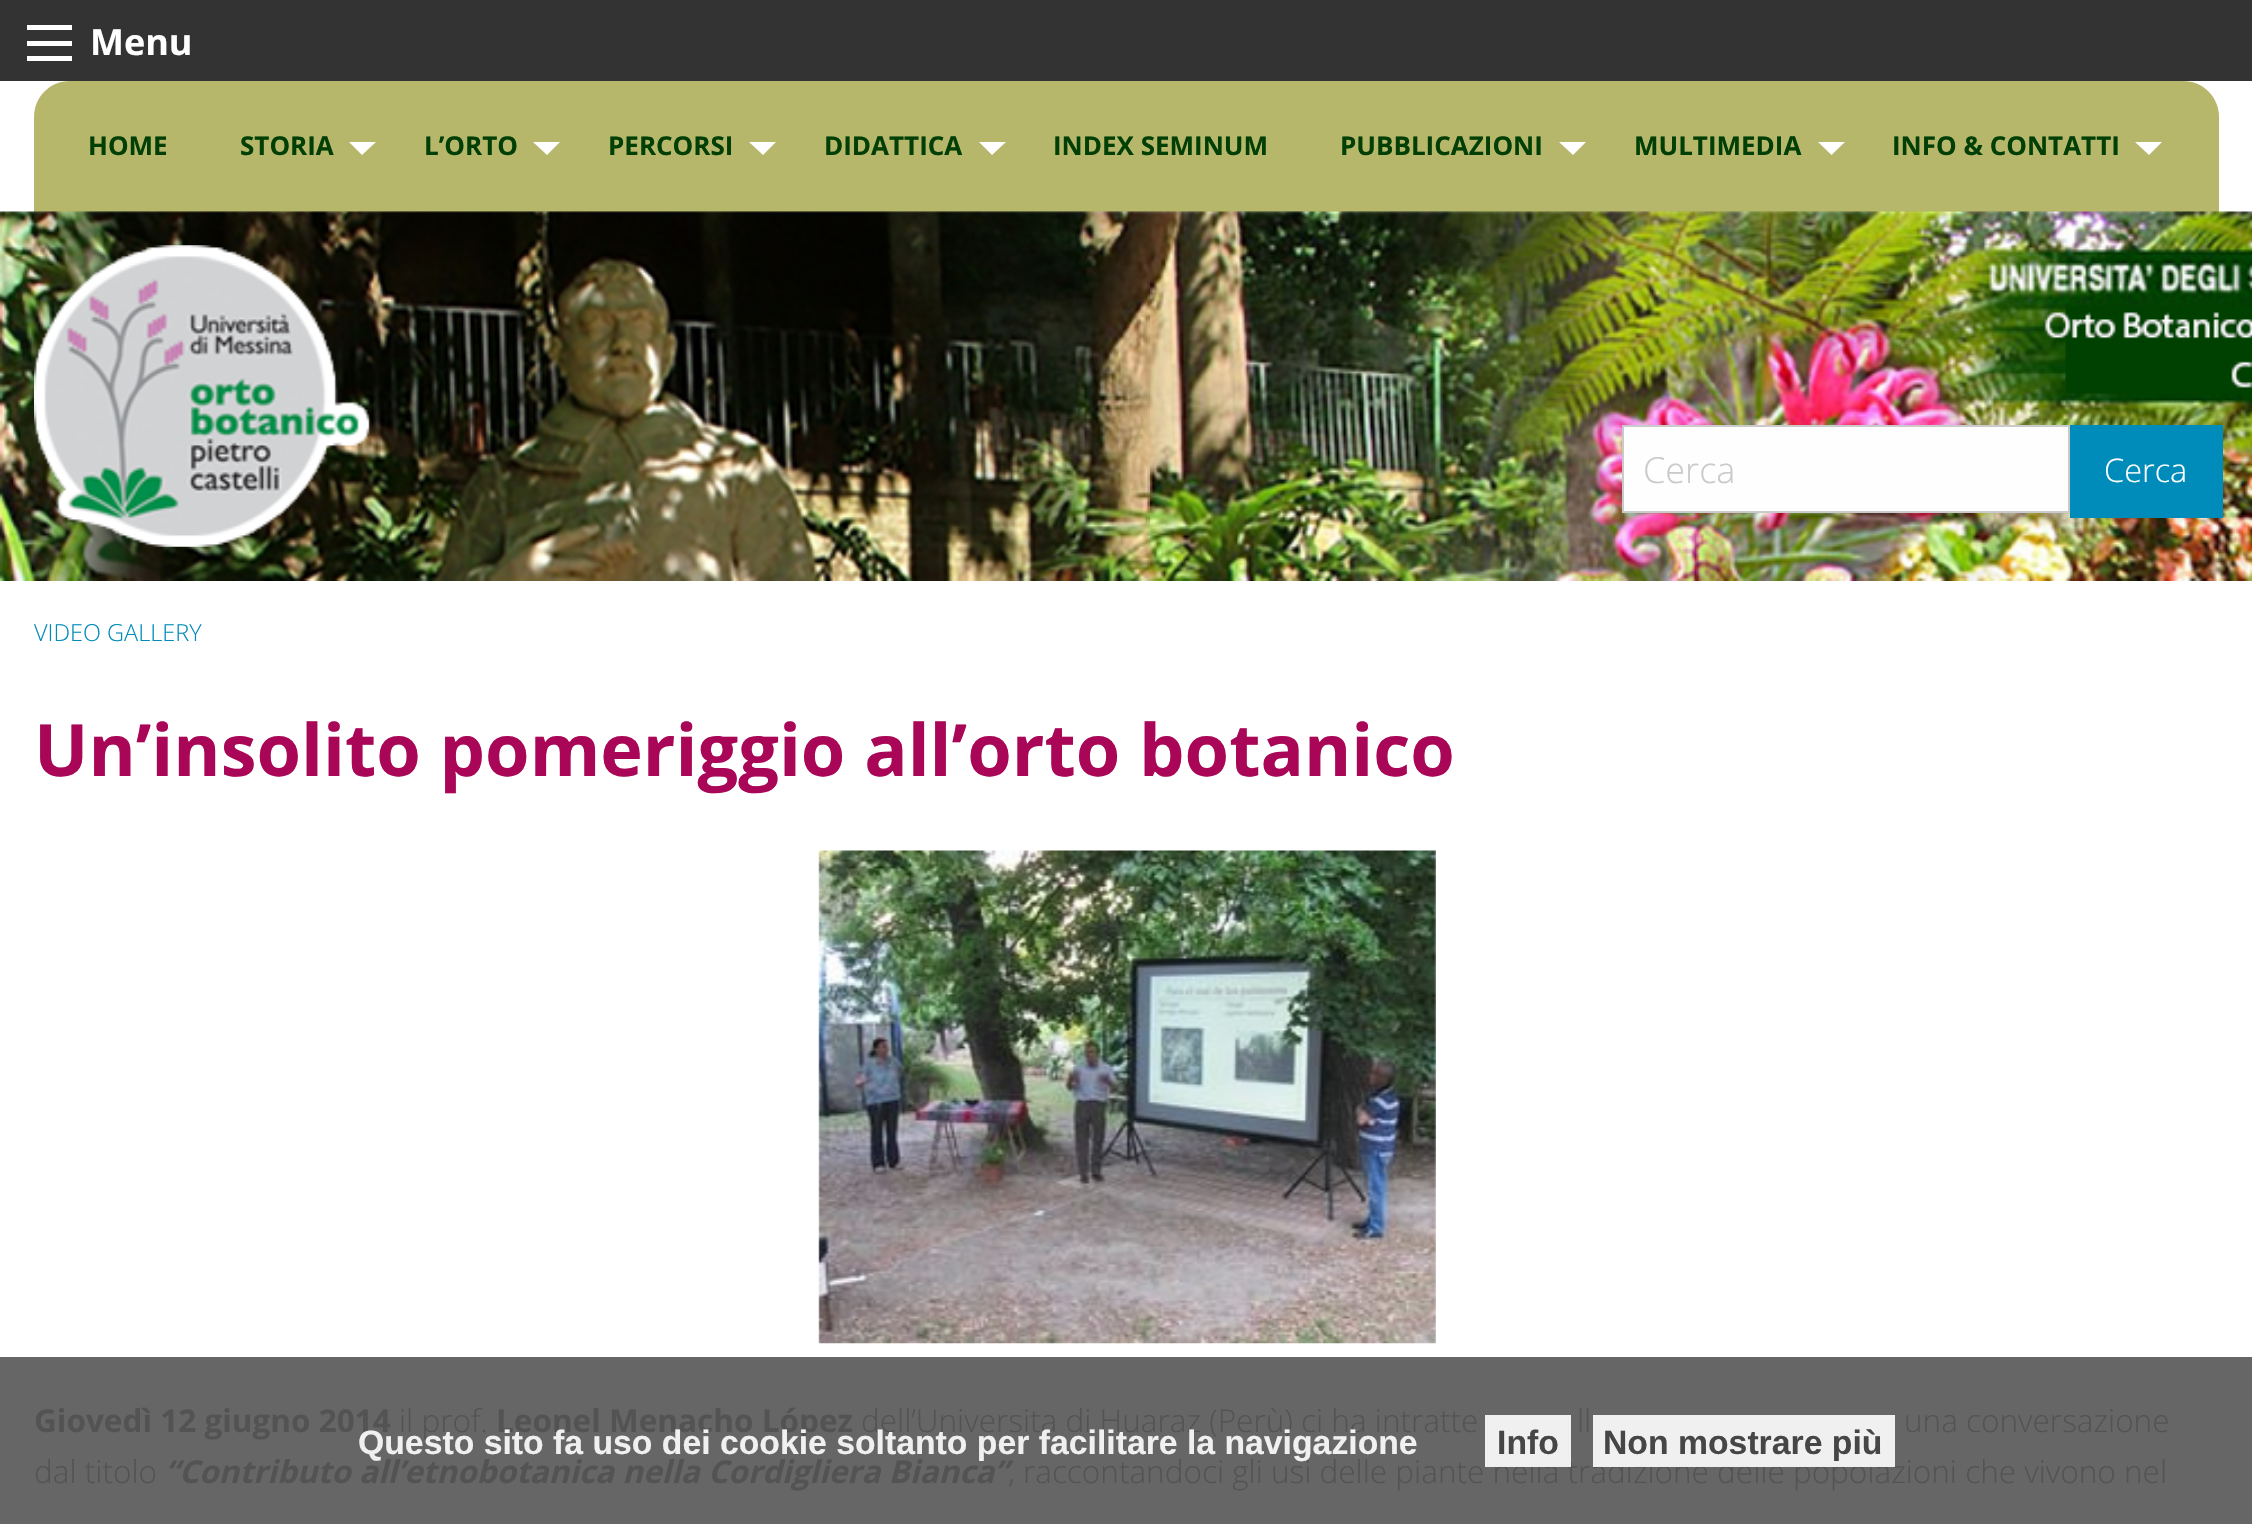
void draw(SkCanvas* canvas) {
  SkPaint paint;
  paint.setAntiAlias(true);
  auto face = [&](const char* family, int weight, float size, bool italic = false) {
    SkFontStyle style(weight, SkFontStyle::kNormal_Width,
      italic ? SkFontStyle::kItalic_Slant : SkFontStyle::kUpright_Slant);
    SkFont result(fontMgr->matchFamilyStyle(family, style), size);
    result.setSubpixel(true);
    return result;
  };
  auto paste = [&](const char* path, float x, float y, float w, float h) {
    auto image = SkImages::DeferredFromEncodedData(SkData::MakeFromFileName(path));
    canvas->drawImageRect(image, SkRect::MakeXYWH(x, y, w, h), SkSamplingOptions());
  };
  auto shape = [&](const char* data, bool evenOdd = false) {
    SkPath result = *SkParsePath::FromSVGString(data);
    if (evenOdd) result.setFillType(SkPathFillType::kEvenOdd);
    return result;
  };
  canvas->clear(0xffffffff);
  {
    const struct { float x, y, w, h; SkColor color; } items[] = {
      {0, 1357, 2252, 167, 0xff666666},
      {0, 0, 2252, 81, 0xff333333},
      {27, 56, 45, 5, 0xffffffff},
      {27, 41, 45, 5, 0xffffffff},
      {27, 25, 45, 5, 0xffffffff},
    };
    for (auto [x, y, w, h, color] : items) {
      paint.setColor(color);
      canvas->drawRect(SkRect::MakeXYWH(x, y, w, h), paint);
    }
  }
  paint.setColor(0xffb6b76a);
  canvas->drawPath(shape("M70 81H2183C2203 81 2219 97 2219 117V212H34V117C34 97 50 81 70 81Z"), paint);
  paint.setColor(0xffffffff);
  canvas->drawPath(shape("M349 142H376L362 155Z"), paint);
  canvas->drawPath(shape("M533 142H560L547 155Z"), paint);
  canvas->drawPath(shape("M749 142H776L763 155Z"), paint);
  canvas->drawPath(shape("M979 142H1006L992 155Z"), paint);
  canvas->drawPath(shape("M1559 142H1586L1573 155Z"), paint);
  canvas->drawPath(shape("M1818 142H1845L1831.5 155Z"), paint);
  canvas->drawPath(shape("M2135 142H2162L2149 155Z"), paint);
  paste("img/1.png", 0, 211, 2252, 370);
  paste("img/2.png", 34, 245, 336, 302);
  paint.setColor(0xfffefefe);
  canvas->drawRect(SkRect::MakeXYWH(1623, 426, 446, 86), paint);
  paint.setStroke(true);
  paint.setStrokeWidth(2);
  paint.setColor(0xffcacaca);
  canvas->drawRect(SkRect::MakeXYWH(1623, 426, 446, 86), paint);
  paint.setStroke(false);
  paint.setColor(0xff008cba);
  canvas->drawRect(SkRect::MakeXYWH(2070, 425, 153, 93), paint);
  paste("img/3.png", 818, 850, 618, 494);
  auto f0 = face("Open Sans", 700, 36);
  paint.setColor(0xffffffff);
  canvas->drawString("Menu", 90, 55, f0, paint);
  auto f1 = face("Open Sans", 700, 26);
  paint.setColor(0xff023f04);
  {
    const struct { const char* s; float x, y; } items[] = {
      {"HOME", 88, 155},
      {"STORIA", 240, 155},
      {"L’ORTO", 424, 155},
      {"PERCORSI", 608, 155},
      {"DIDATTICA", 824, 155},
      {"INDEX SEMINUM", 1053, 155},
      {"PUBBLICAZIONI", 1340, 155},
      {"MULTIMEDIA", 1634, 155},
      {"INFO & CONTATTI", 1892, 155},
    };
    for (auto [s, x, y] : items) {
      canvas->drawString(s, x, y, f1, paint);
    }
  }
  auto f2 = face("Open Sans", 300, 36);
  paint.setColor(0xffcacaca);
  canvas->drawString("Cerca", 1643, 483, f2, paint);
  auto f3 = face("Open Sans", 300, 32.5f);
  paint.setColor(0xffffffff);
  canvas->drawString("Cerca", 2104, 482, f3, paint);
  auto f4 = face("Open Sans", 300, 23.5f);
  paint.setColor(0xff008cba);
  canvas->drawString("VIDEO GALLERY", 34, 641, f4, paint);
  auto f5 = face("Open Sans", 700, 72);
  paint.setColor(0xffa90657);
  canvas->drawString("Un’insolito pomeriggio all’orto botanico", 34, 776, f5, paint);
  auto f6 = face("Open Sans", 700, 31.5f);
  paint.setColor(0xff535353);
  canvas->drawString("Giovedì 12 giugno 2014", 34, 1432, f6, paint);
  auto f7 = face("Open Sans", 300, 31.5f);
  canvas->drawString("il prof.", 399, 1432, f7, paint);
  canvas->drawString("Leonel Menacho López", 496, 1432, f6, paint);
  {
    const struct { const char* s; float x, y; } items[] = {
      {"dell’Universita di Huaraz (Perù) ci ha intratte", 861, 1432},
      {"ll", 1577, 1432},
      {"una conversazione", 1904, 1432},
      {"dal titolo", 34, 1483},
    };
    for (auto [s, x, y] : items) {
      canvas->drawString(s, x, y, f7, paint);
    }
  }
  auto f8 = face("Open Sans", 700, 31.5f, true);
  canvas->drawString("“Contributo all’etnobotanica nella Cordigliera Bianca”", 165, 1483, f8, paint);
  canvas->drawString(", raccontandoci gli usi delle piante nella tradizione delle popolazioni che vivono nel", 1008, 1483, f7, paint);
  auto f9 = face("Liberation Sans", 700, 33.75f);
  paint.setColor(0xfff0f0f0);
  canvas->drawString("Questo sito fa uso dei cookie soltanto per facilitare la navigazione", 358, 1454, f9, paint);
  paint.setColor(0xe6ffffff);
  canvas->drawRect(SkRect::MakeXYWH(1485, 1415, 86, 52), paint);
  paint.setColor(0xff464646);
  canvas->drawString("Info", 1497, 1454, f9, paint);
  paint.setColor(0xe6ffffff);
  canvas->drawRect(SkRect::MakeXYWH(1593, 1415, 302, 52), paint);
  paint.setColor(0xff464646);
  canvas->drawString("Non mostrare più", 1603, 1454, f9, paint);
}
